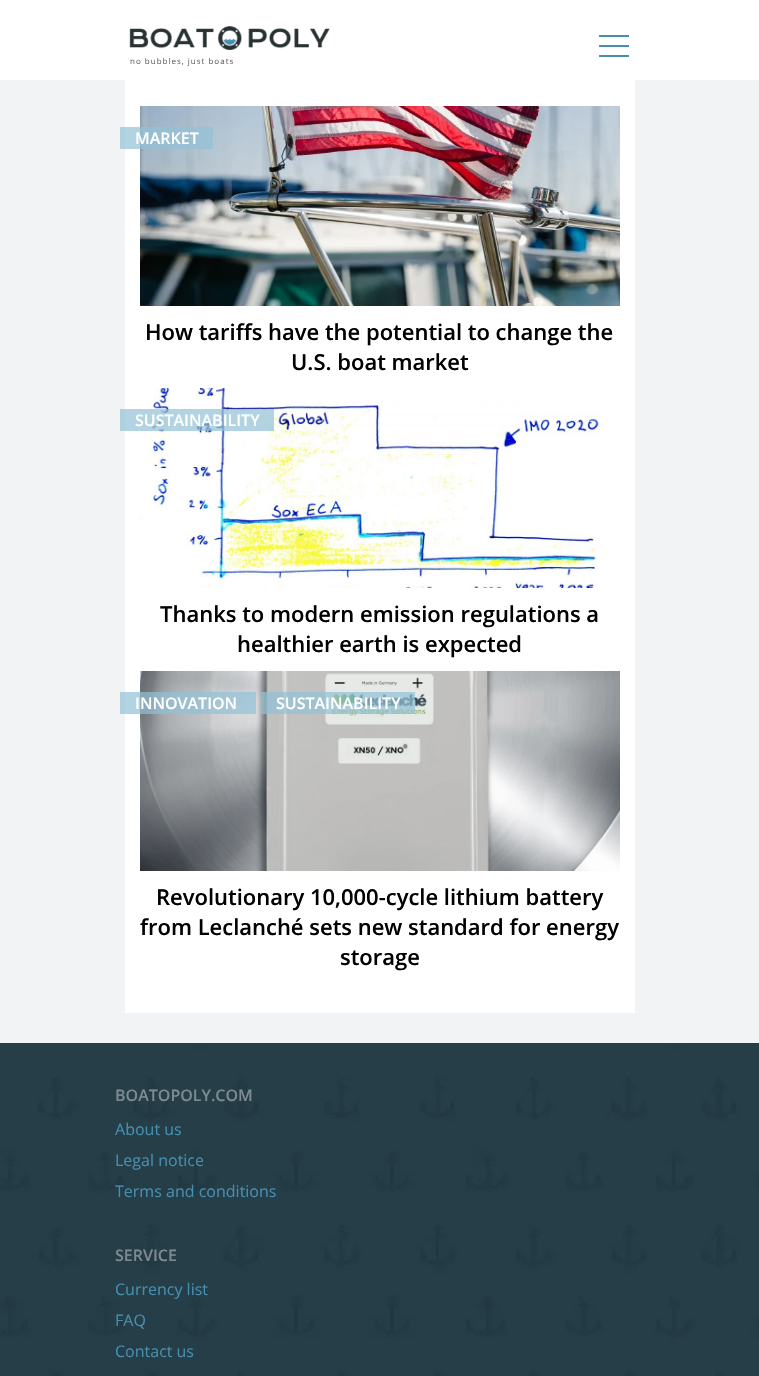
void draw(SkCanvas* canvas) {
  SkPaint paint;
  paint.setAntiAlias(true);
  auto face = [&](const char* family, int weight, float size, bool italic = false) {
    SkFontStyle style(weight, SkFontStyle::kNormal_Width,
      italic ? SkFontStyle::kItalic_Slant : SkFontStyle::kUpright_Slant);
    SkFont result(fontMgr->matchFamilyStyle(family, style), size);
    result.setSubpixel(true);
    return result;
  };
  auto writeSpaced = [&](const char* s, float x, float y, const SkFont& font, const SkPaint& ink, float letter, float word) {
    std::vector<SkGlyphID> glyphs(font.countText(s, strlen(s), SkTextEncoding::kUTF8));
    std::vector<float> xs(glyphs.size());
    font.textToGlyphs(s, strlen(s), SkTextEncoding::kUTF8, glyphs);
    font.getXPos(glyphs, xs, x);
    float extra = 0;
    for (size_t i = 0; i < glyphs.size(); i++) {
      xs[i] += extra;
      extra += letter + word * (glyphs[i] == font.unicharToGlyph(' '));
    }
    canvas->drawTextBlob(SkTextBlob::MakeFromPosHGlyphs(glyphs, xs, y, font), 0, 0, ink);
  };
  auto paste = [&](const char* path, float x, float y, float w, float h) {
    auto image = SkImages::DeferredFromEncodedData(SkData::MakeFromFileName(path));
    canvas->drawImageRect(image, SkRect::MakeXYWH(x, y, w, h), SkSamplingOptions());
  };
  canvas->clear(0xfff1f3f4);
  {
    const struct { float x, y, w, h; SkColor color; } items[] = {
      {0, 0, 759, 80, 0xffffffff},
      {599, 35, 30, 2, 0xff468fb0},
      {599, 45, 30, 2, 0xff468fb0},
      {599, 55, 30, 2, 0xff468fb0},
    };
    for (auto [x, y, w, h, color] : items) {
      paint.setColor(color);
      canvas->drawRect(SkRect::MakeXYWH(x, y, w, h), paint);
    }
  }
  paste("img/1.png", 129, 26, 201, 24);
  paint.setColor(0xffffffff);
  canvas->drawRect(SkRect::MakeXYWH(125, 80, 510, 933), paint);
  paste("img/2.png", 140, 106, 480, 200);
  paint.setColor(0xb392c1d6);
  canvas->drawRect(SkRect::MakeXYWH(120, 127, 93, 22), paint);
  paste("img/3.png", 140, 388, 465, 200);
  canvas->drawRect(SkRect::MakeXYWH(120, 409, 154, 22), paint);
  paste("img/4.png", 140, 671, 480, 200);
  canvas->drawRect(SkRect::MakeXYWH(120, 692, 136, 22), paint);
  canvas->drawRect(SkRect::MakeXYWH(261, 692, 154, 22), paint);
  paste("img/5.png", 0, 1043, 759, 333);
  auto f0 = face("Open Sans", 400, 8);
  paint.setColor(0xff666666);
  writeSpaced("no bubbles, just boats", 130, 64, f0, paint, 1, 0);
  auto f1 = face("Open Sans", 600, 16);
  paint.setColor(0xffffffff);
  canvas->drawString("MARKET", 135, 144, f1, paint);
  auto f2 = face("Open Sans", 600, 22);
  paint.setColor(0xff000000);
  canvas->drawString("How tariffs have the potential to change the", 145, 340, f2, paint);
  canvas->drawString("U.S. boat market", 291, 370, f2, paint);
  paint.setColor(0xffffffff);
  canvas->drawString("SUSTAINABILITY", 135, 426, f1, paint);
  paint.setColor(0xff000000);
  canvas->drawString("Thanks to modern emission regulations a", 160, 622, f2, paint);
  canvas->drawString("healthier earth is expected", 237, 652, f2, paint);
  paint.setColor(0xffffffff);
  canvas->drawString("INNOVATION", 135, 709, f1, paint);
  canvas->drawString("SUSTAINABILITY", 276, 709, f1, paint);
  paint.setColor(0xff000000);
  {
    const struct { const char* s; float x, y; } items[] = {
      {"Revolutionary 10,000-cycle lithium battery", 156, 905},
      {"from Leclanché sets new standard for energy", 140, 935},
      {"storage", 340, 965},
    };
    for (auto [s, x, y] : items) {
      canvas->drawString(s, x, y, f2, paint);
    }
  }
  paint.setColor(0xff7d8b91);
  canvas->drawString("BOATOPOLY.COM", 115, 1101, f1, paint);
  auto f3 = face("Open Sans", 400, 16);
  paint.setColor(0xff468fb0);
  {
    const struct { const char* s; float x, y; } items[] = {
      {"About us", 115, 1135},
      {"Legal notice", 115, 1166},
      {"Terms and conditions", 115, 1197},
    };
    for (auto [s, x, y] : items) {
      canvas->drawString(s, x, y, f3, paint);
    }
  }
  paint.setColor(0xff7d8b91);
  canvas->drawString("SERVICE", 115, 1261, f1, paint);
  paint.setColor(0xff468fb0);
  {
    const struct { const char* s; float x, y; } items[] = {
      {"Currency list", 115, 1295},
      {"FAQ", 115, 1326},
      {"Contact us", 115, 1357},
    };
    for (auto [s, x, y] : items) {
      canvas->drawString(s, x, y, f3, paint);
    }
  }
}
